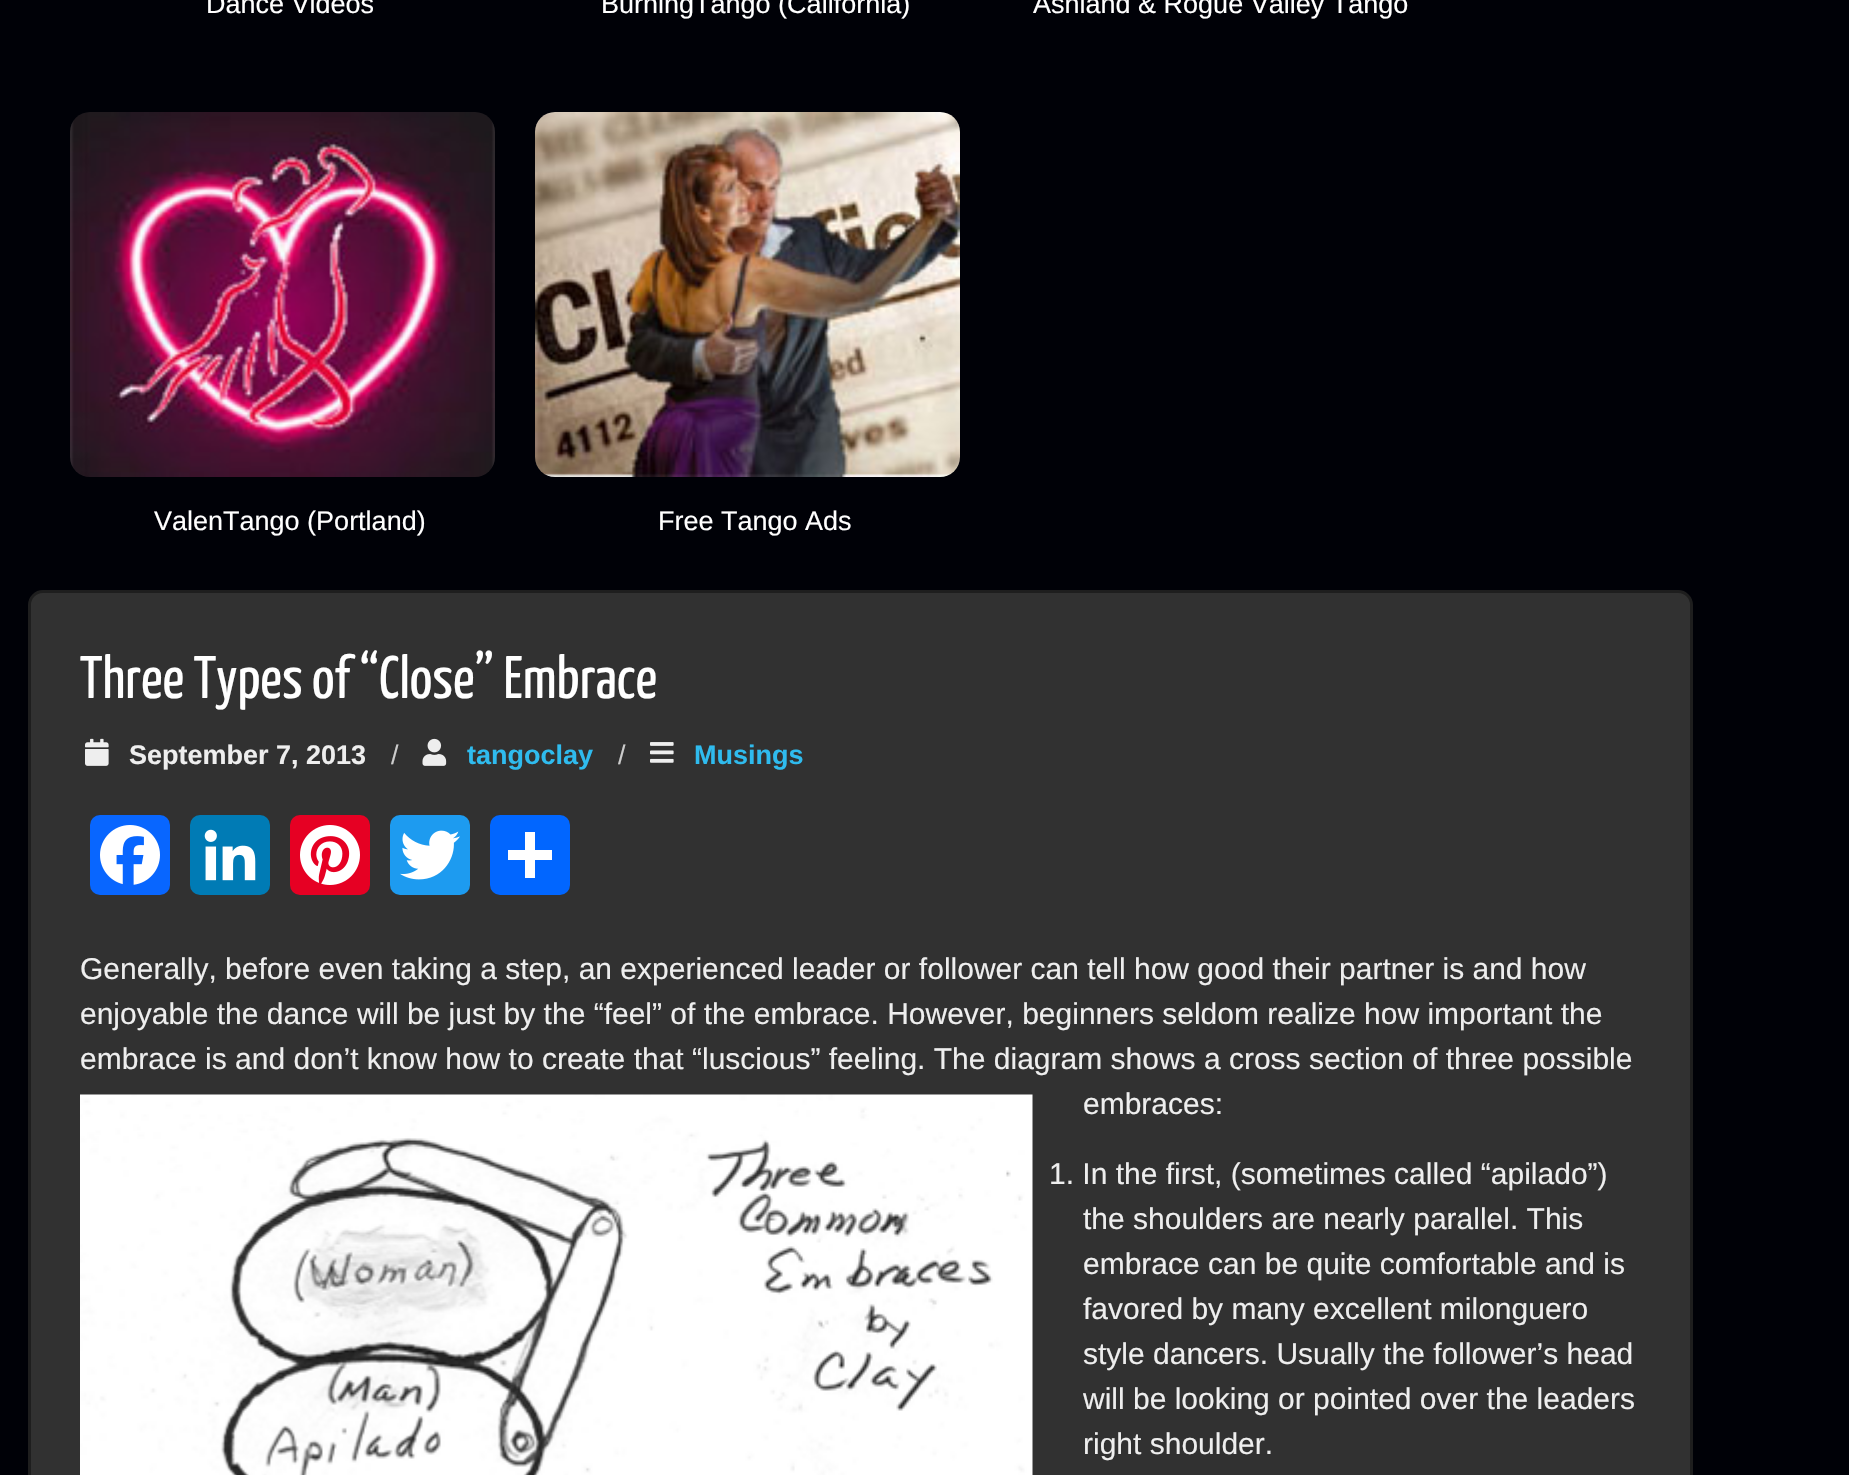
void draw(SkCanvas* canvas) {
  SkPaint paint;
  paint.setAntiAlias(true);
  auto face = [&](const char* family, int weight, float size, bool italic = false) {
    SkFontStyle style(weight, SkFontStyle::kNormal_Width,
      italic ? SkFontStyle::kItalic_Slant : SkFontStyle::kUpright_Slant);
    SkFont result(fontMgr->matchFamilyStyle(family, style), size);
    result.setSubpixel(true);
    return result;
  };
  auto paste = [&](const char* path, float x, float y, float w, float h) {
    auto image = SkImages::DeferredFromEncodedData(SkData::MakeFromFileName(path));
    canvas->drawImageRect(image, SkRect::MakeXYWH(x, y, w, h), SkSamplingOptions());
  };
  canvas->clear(0xff000107);
  paste("img/1.png", 70, 112, 425, 365);
  paste("img/2.png", 535, 112, 425, 365);
  paint.setColor(0xff313131);
  canvas->drawRoundRect(SkRect::MakeXYWH(29.5f, 591.5f, 1662, 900), 13.5f, 13.5f, paint);
  paint.setStroke(true);
  paint.setStrokeWidth(3);
  paint.setColor(0xff1e1e1e);
  canvas->drawRoundRect(SkRect::MakeXYWH(29.5f, 591.5f, 1662, 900), 13.5f, 13.5f, paint);
  paste("img/3.png", 85, 738, 24, 28);
  paste("img/4.png", 422, 738, 25, 28);
  paste("img/5.png", 650, 742, 24, 21);
  paint.setStroke(false);
  paint.setColor(0xff0866ff);
  canvas->drawRoundRect(SkRect::MakeXYWH(90, 815, 80, 80), 10, 10, paint);
  paste("img/6.png", 100, 825, 60, 60);
  paint.setColor(0xff007bb5);
  canvas->drawRoundRect(SkRect::MakeXYWH(190, 815, 80, 80), 10, 10, paint);
  paste("img/7.png", 204, 829, 52, 52);
  paint.setColor(0xffe60023);
  canvas->drawRoundRect(SkRect::MakeXYWH(290, 815, 80, 80), 10, 10, paint);
  paste("img/8.png", 300, 825, 60, 60);
  paint.setColor(0xff1d9bf0);
  canvas->drawRoundRect(SkRect::MakeXYWH(390, 815, 80, 80), 10, 10, paint);
  paste("img/9.png", 400, 830, 60, 50);
  paint.setColor(0xff0166ff);
  canvas->drawRoundRect(SkRect::MakeXYWH(490, 815, 80, 80), 10, 10, paint);
  paint.setColor(0xffffffff);
  canvas->drawRect(SkRect::MakeXYWH(525, 832, 10, 46), paint);
  canvas->drawRect(SkRect::MakeXYWH(508, 850, 44, 10), paint);
  paste("img/10.png", 80, 1094, 953, 381);
  auto f0 = face("Liberation Sans", 400, 27);
  {
    const struct { const char* s; float x, y; } items[] = {
      {"Dance Videos", 206, 13},
      {"BurningTango (California)", 601, 13},
      {"Ashland & Rogue Valley Tango", 1033, 13},
      {"ValenTango (Portland)", 154, 530},
      {"Free Tango Ads", 658, 530},
    };
    for (auto [s, x, y] : items) {
      canvas->drawString(s, x, y, f0, paint);
    }
  }
  auto f1 = face("Yanone Kaffeesatz", 200, 60);
  canvas->drawString("Three Types of “Close” Embrace", 80, 698, f1, paint);
  auto f2 = face("Liberation Sans", 700, 27);
  paint.setColor(0xffeeeeee);
  canvas->drawString("September 7, 2013", 129, 764, f2, paint);
  paint.setColor(0xffcccccc);
  canvas->drawString("/", 391, 764, f0, paint);
  paint.setColor(0xff2fbbee);
  canvas->drawString("tangoclay", 467, 764, f2, paint);
  paint.setColor(0xffcccccc);
  canvas->drawString("/", 618, 764, f0, paint);
  paint.setColor(0xff2fbbee);
  canvas->drawString("Musings", 694, 764, f2, paint);
  auto f3 = face("Liberation Sans", 400, 30);
  paint.setColor(0xffeeeeee);
  {
    const struct { const char* s; float x, y; } items[] = {
      {"Generally, before even taking a step, an experienced leader or follower can tell how good their partner is and how", 80, 979},
      {"enjoyable the dance will be just by the “feel” of the embrace. However, beginners seldom realize how important the", 80, 1024},
      {"embrace is and don’t know how to create that “luscious” feeling. The diagram shows a cross section of three possible", 80, 1069},
      {"embraces:", 1083, 1114},
      {"1. In the first, (sometimes called “apilado”)", 1049, 1184},
      {"the shoulders are nearly parallel. This", 1083, 1229},
      {"embrace can be quite comfortable and is", 1083, 1274},
      {"favored by many excellent milonguero", 1083, 1319},
      {"style dancers. Usually the follower’s head", 1083, 1364},
      {"will be looking or pointed over the leaders", 1083, 1409},
      {"right shoulder.", 1083, 1454},
    };
    for (auto [s, x, y] : items) {
      canvas->drawString(s, x, y, f3, paint);
    }
  }
}
